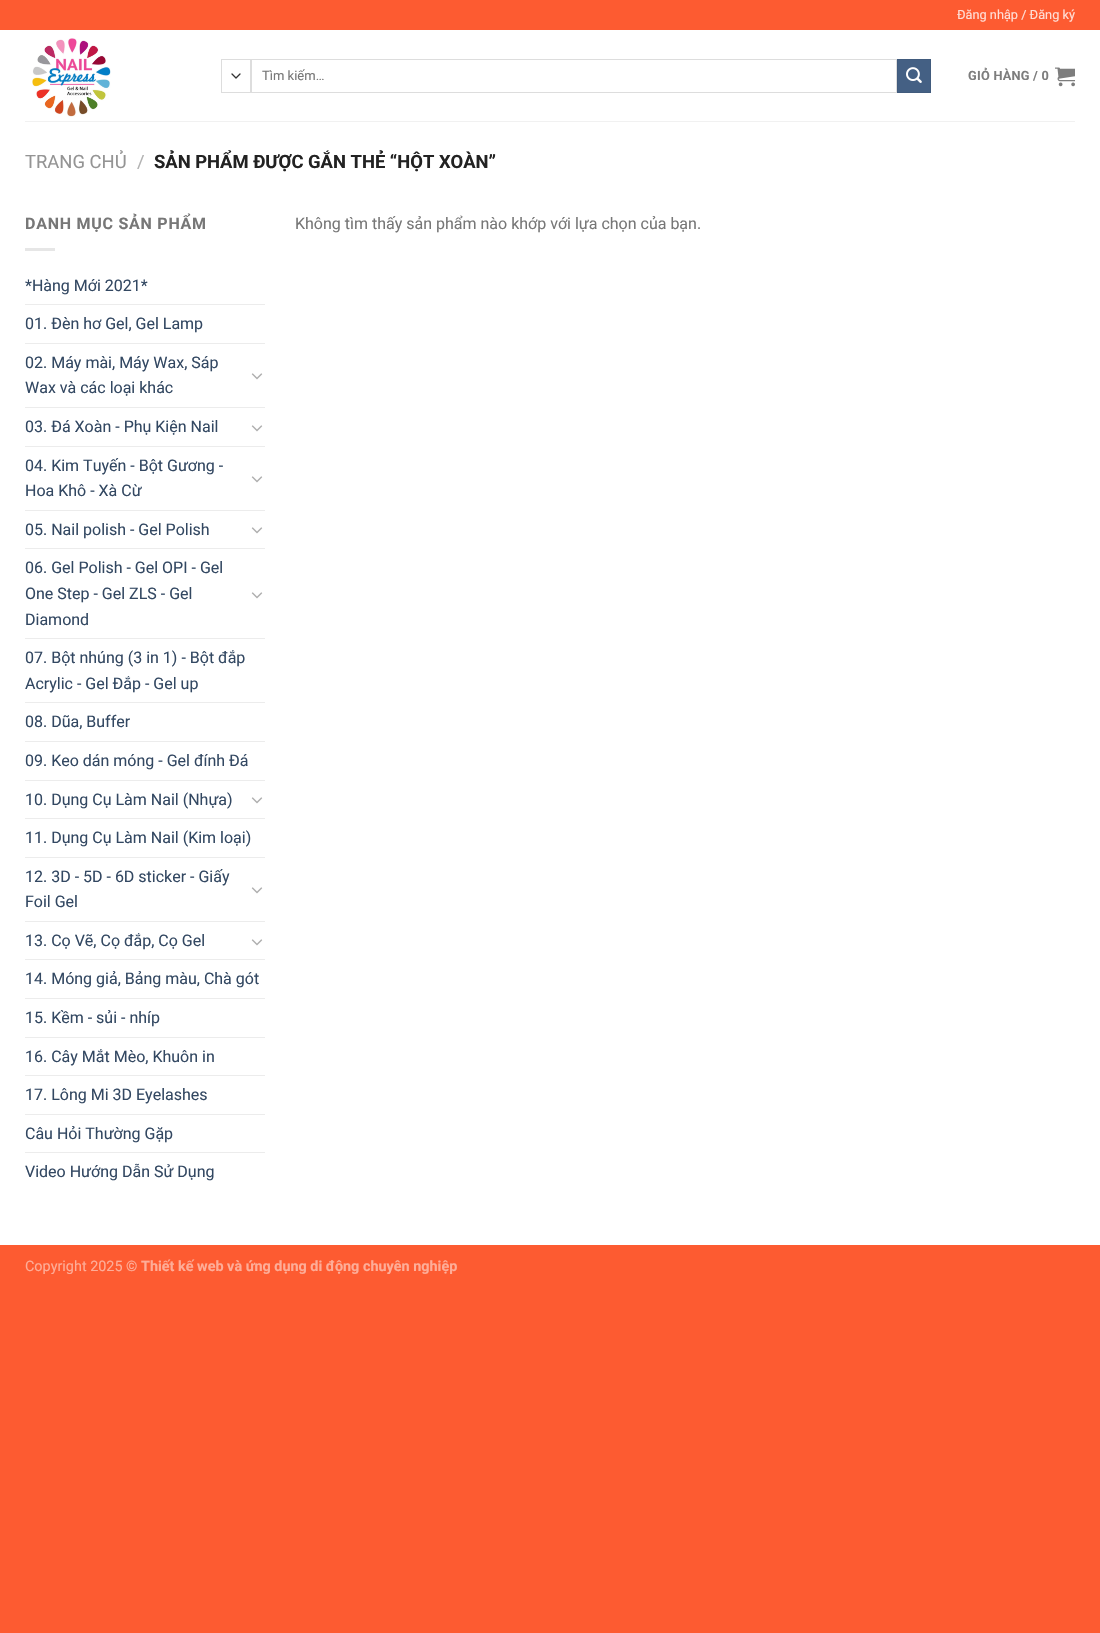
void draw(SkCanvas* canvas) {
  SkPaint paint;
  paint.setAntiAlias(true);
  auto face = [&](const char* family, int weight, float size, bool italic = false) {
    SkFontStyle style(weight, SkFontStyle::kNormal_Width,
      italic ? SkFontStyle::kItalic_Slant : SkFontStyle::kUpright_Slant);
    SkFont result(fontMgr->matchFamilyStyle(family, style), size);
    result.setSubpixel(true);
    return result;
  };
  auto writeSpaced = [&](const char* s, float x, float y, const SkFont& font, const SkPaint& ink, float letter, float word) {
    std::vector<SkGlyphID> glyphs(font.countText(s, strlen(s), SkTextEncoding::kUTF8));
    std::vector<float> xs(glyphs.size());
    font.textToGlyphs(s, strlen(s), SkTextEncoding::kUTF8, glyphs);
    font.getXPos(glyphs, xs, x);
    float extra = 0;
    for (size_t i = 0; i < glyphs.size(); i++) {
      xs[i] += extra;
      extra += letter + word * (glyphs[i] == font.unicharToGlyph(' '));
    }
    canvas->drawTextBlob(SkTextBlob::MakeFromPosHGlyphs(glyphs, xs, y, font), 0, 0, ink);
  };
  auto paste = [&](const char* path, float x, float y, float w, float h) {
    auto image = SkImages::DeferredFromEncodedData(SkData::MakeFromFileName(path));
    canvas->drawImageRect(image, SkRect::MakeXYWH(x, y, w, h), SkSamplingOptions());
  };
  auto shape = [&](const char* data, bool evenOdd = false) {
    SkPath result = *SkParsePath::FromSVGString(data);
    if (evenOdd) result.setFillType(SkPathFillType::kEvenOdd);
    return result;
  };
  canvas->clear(0xfffd5b31);
  paint.setColor(0xffffffff);
  canvas->drawRect(SkRect::MakeXYWH(0, 30, 1100, 1215), paint);
  paste("img/1.png", 32, 38, 79, 79);
  paint.setStroke(true);
  paint.setStrokeWidth(1.3f);
  paint.setStrokeCap(SkPaint::kRound_Cap);
  paint.setStrokeJoin(SkPaint::kRound_Join);
  paint.setColor(0xff333333);
  canvas->drawPath(shape("M232 74L236 78L240 74"), paint);
  paint.setStrokeWidth(1);
  paint.setStrokeCap(SkPaint::kButt_Cap);
  paint.setStrokeJoin(SkPaint::kMiter_Join);
  paint.setColor(0xffdddddd);
  canvas->drawRect(SkRect::MakeXYWH(221.5f, 59.5f, 29, 33), paint);
  canvas->drawRect(SkRect::MakeXYWH(251.5f, 59.5f, 645, 33), paint);
  paint.setStroke(false);
  paint.setColor(0xff446084);
  canvas->drawRect(SkRect::MakeXYWH(897.5f, 59.5f, 33, 33), paint);
  paint.setStroke(true);
  paint.setColor(0xff415b7d);
  canvas->drawRect(SkRect::MakeXYWH(897.5f, 59.5f, 33, 33), paint);
  paste("img/2.png", 906, 67, 16, 16);
  paste("img/3.png", 1055, 67, 20, 20);
  paint.setStroke(false);
  {
    const struct { float x, y, w, h; SkColor color; } items[] = {
      {25, 121, 1050, 1, 0xfff1f1f1},
      {25, 248, 30, 3, 0xffe6e6e6},
      {25, 304, 240, 1, 0xffececec},
      {25, 343, 240, 1, 0xffececec},
    };
    for (auto [x, y, w, h, color] : items) {
      paint.setColor(color);
      canvas->drawRect(SkRect::MakeXYWH(x, y, w, h), paint);
    }
  }
  paste("img/4.png", 251, 373, 12, 7);
  canvas->drawRect(SkRect::MakeXYWH(25, 407, 240, 1), paint);
  paste("img/4.png", 251, 425, 12, 7);
  canvas->drawRect(SkRect::MakeXYWH(25, 446, 240, 1), paint);
  paste("img/4.png", 251, 476, 12, 7);
  canvas->drawRect(SkRect::MakeXYWH(25, 510, 240, 1), paint);
  paste("img/4.png", 251, 527, 12, 7);
  canvas->drawRect(SkRect::MakeXYWH(25, 548, 240, 1), paint);
  paste("img/4.png", 251, 592, 12, 7);
  {
    const struct { float x, y, w, h; SkColor color; } items[] = {
      {25, 638, 240, 1, 0xffececec},
      {25, 702, 240, 1, 0xffececec},
      {25, 741, 240, 1, 0xffececec},
      {25, 780, 240, 1, 0xffececec},
    };
    for (auto [x, y, w, h, color] : items) {
      paint.setColor(color);
      canvas->drawRect(SkRect::MakeXYWH(x, y, w, h), paint);
    }
  }
  paste("img/4.png", 251, 797, 12, 7);
  canvas->drawRect(SkRect::MakeXYWH(25, 818, 240, 1), paint);
  canvas->drawRect(SkRect::MakeXYWH(25, 857, 240, 1), paint);
  paste("img/4.png", 251, 887, 12, 7);
  canvas->drawRect(SkRect::MakeXYWH(25, 921, 240, 1), paint);
  paste("img/4.png", 251, 939, 12, 7);
  {
    const struct { float x, y, w, h; SkColor color; } items[] = {
      {25, 959, 240, 1, 0xffececec},
      {25, 998, 240, 1, 0xffececec},
      {25, 1037, 240, 1, 0xffececec},
      {25, 1075, 240, 1, 0xffececec},
      {25, 1114, 240, 1, 0xffececec},
      {25, 1152, 240, 1, 0xffececec},
    };
    for (auto [x, y, w, h, color] : items) {
      paint.setColor(color);
      canvas->drawRect(SkRect::MakeXYWH(x, y, w, h), paint);
    }
  }
  auto f0 = face("Roboto", 400, 12.75f);
  paint.setColor(0xffffded6);
  canvas->drawString("Đăng nhập / Đăng ký", 957, 19, f0, paint);
  auto f1 = face("Roboto", 400, 13);
  paint.setColor(0xff777777);
  canvas->drawString("Tìm kiếm…", 262, 80, f1, paint);
  auto f2 = face("Roboto", 700, 12.75f);
  paint.setColor(0xff7d7d7d);
  writeSpaced("GIỎ HÀNG / 0", 968, 80, f2, paint, 0.25f, 0);
  auto f3 = face("Roboto", 400, 18.4f);
  paint.setColor(0xff949494);
  canvas->drawString("TRANG CHỦ", 25, 168, f3, paint);
  paint.setColor(0xffb2b2b2);
  canvas->drawString("/", 137, 168, f3, paint);
  auto f4 = face("Roboto", 700, 18.4f);
  paint.setColor(0xff222222);
  canvas->drawString("SẢN PHẨM ĐƯỢC GẮN THẺ “HỘT XOÀN”", 154, 168, f4, paint);
  auto f5 = face("Roboto", 700, 16);
  paint.setColor(0xff777777);
  writeSpaced("DANH MỤC SẢN PHẨM", 25, 229, f5, paint, 0.75f, 0);
  auto f6 = face("Roboto", 400, 16);
  paint.setColor(0xff334862);
  {
    const struct { const char* s; float x, y; } items[] = {
      {"*Hàng Mới 2021*", 25, 291},
      {"01. Đèn hơ Gel, Gel Lamp", 25, 329},
      {"02. Máy mài, Máy Wax, Sáp", 25, 368},
      {"Wax và các loại khác", 25, 393},
      {"03. Đá Xoàn - Phụ Kiện Nail", 25, 432},
      {"04. Kim Tuyến - Bột Gương -", 25, 471},
      {"Hoa Khô - Xà Cừ", 25, 496},
      {"05. Nail polish - Gel Polish", 25, 535},
      {"06. Gel Polish - Gel OPI - Gel", 25, 573},
      {"One Step - Gel ZLS - Gel", 25, 599},
      {"Diamond", 25, 625},
      {"07. Bột nhúng (3 in 1) - Bột đắp", 25, 663},
      {"Acrylic - Gel Đắp - Gel up", 25, 689},
      {"08. Dũa, Buffer", 25, 727},
      {"09. Keo dán móng - Gel đính Đá", 25, 766},
      {"10. Dụng Cụ Làm Nail (Nhựa)", 25, 805},
      {"11. Dụng Cụ Làm Nail (Kim loại)", 25, 843},
      {"12. 3D - 5D - 6D sticker - Giấy", 25, 882},
      {"Foil Gel", 25, 907},
      {"13. Cọ Vẽ, Cọ đắp, Cọ Gel", 25, 946},
      {"14. Móng giả, Bảng màu, Chà gót", 25, 984},
      {"15. Kềm - sủi - nhíp", 25, 1023},
      {"16. Cây Mắt Mèo, Khuôn in", 25, 1062},
      {"17. Lông Mi 3D Eyelashes", 25, 1100},
      {"Câu Hỏi Thường Gặp", 25, 1139},
      {"Video Hướng Dẫn Sử Dụng", 25, 1177},
    };
    for (auto [s, x, y] : items) {
      canvas->drawString(s, x, y, f6, paint);
    }
  }
  paint.setColor(0xff777777);
  canvas->drawString("Không tìm thấy sản phẩm nào khớp với lựa chọn của bạn.", 295, 229, f6, paint);
  auto f7 = face("Roboto", 400, 14.4f);
  paint.setColor(0xfffead98);
  canvas->drawString("Copyright 2025 ©", 25, 1271, f7, paint);
  auto f8 = face("Roboto", 700, 14.4f);
  canvas->drawString("Thiết kế web và ứng dụng di động chuyên nghiệp", 141, 1271, f8, paint);
}
